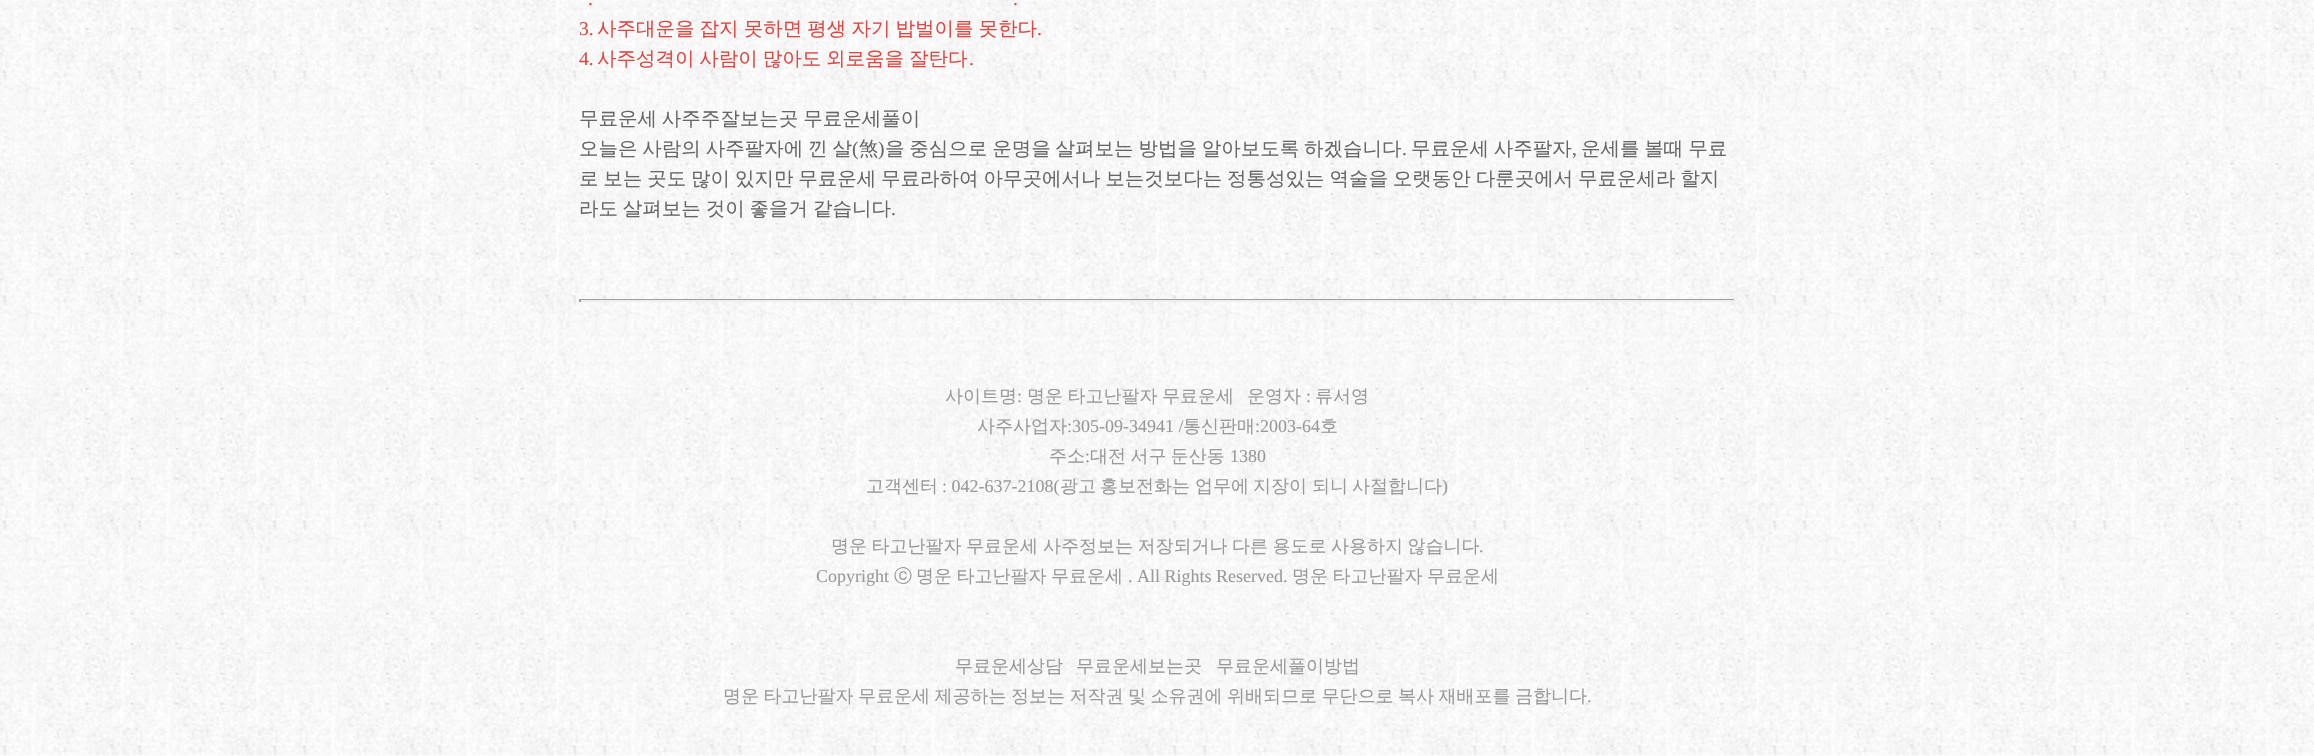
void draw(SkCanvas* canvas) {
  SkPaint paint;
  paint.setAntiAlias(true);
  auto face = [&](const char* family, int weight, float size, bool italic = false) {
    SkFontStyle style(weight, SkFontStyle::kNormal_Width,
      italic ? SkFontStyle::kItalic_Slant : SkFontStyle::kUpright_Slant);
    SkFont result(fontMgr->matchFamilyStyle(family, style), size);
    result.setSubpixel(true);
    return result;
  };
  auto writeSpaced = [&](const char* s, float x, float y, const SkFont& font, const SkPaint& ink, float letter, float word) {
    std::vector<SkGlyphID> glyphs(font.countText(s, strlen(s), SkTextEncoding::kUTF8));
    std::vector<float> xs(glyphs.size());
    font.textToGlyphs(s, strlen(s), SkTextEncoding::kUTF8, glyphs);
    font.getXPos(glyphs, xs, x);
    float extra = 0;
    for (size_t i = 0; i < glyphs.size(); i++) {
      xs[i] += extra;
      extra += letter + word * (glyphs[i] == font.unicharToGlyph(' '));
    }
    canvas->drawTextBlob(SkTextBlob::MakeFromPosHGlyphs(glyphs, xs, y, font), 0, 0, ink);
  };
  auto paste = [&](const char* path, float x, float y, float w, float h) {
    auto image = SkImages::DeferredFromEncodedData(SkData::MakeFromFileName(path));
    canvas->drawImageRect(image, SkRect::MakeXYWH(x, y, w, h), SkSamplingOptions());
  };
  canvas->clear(0xffffffff);
  paste("img/1.png", 0, 0, 2314, 756);
  {
    const struct { float x, y, w, h; SkColor color; } items[] = {
      {579, 299, 1157, 1, 0xff9f9f9f},
      {1734, 299, 2, 3, 0xffeeeeee},
      {579, 300, 1157, 2, 0xffeeeeee},
      {579, 299, 2, 3, 0xff9f9f9f},
    };
    for (auto [x, y, w, h, color] : items) {
      paint.setColor(color);
      canvas->drawRect(SkRect::MakeXYWH(x, y, w, h), paint);
    }
  }
  auto f0 = face("Liberation Serif", 400, 19.5f);
  paint.setColor(0xffdf4641);
  {
    const struct { const char* s; float x, y; } items[] = {
      {".", 588, 5},
      {".", 1013, 5},
      {"3.", 579, 35},
    };
    for (auto [s, x, y] : items) {
      canvas->drawString(s, x, y, f0, paint);
    }
  }
  auto f1 = face("WenQuanYi Zen Hei", 500, 19.5f);
  writeSpaced("사주대운을 잡지 못하면 평생 자기 밥벌이를 못한다", 597, 35, f1, paint, 0, -0.75f);
  canvas->drawString(".", 1037, 35, f0, paint);
  canvas->drawString("4.", 579, 65, f0, paint);
  writeSpaced("사주성격이 사람이 많아도 외로움을 잘탄다", 597, 65, f1, paint, 0, -1);
  canvas->drawString(".", 969, 65, f0, paint);
  paint.setColor(0xff666666);
  writeSpaced("무료운세 사주주잘보는곳 무료운세풀이", 579, 125, f1, paint, 0, -1);
  writeSpaced("오늘은 사람의 사주팔자에 낀 살", 579, 155, f1, paint, 0, -1);
  canvas->drawString("(", 852, 155, f0, paint);
  canvas->drawString("煞", 859, 155, f1, paint);
  canvas->drawString(")", 878, 155, f0, paint);
  writeSpaced("을 중심으로 운명을 살펴보는 방법을 알아보도록 하겠습니다", 885, 155, f1, paint, 0, -1);
  canvas->drawString(".", 1402, 155, f0, paint);
  writeSpaced("무료운세 사주팔자", 1411, 155, f1, paint, 0, -1);
  canvas->drawString(",", 1572, 155, f0, paint);
  {
    const struct { const char* s; float x, y; } items[] = {
      {"운세를 볼때 무료", 1581, 155},
      {"로 보는 곳도 많이 있지만 무료운세 무료라하여 아무곳에서나 보는것보다는 정통성있는 역술을 오랫동안 다룬곳에서 무료운세라 할지", 579, 185},
      {"라도 살펴보는 것이 좋을거 같습니다", 579, 215},
    };
    for (auto [s, x, y] : items) {
      writeSpaced(s, x, y, f1, paint, 0, -1);
    }
  }
  canvas->drawString(".", 891, 215, f0, paint);
  auto f2 = face("WenQuanYi Zen Hei", 500, 18);
  paint.setColor(0xff999999);
  canvas->drawString("사이트명", 945, 402, f2, paint);
  auto f3 = face("Liberation Serif", 400, 18);
  canvas->drawString(":", 1017, 402, f3, paint);
  writeSpaced("명운 타고난팔자 무료운세", 1027, 402, f2, paint, 0, -0.9f);
  canvas->drawString("운영자", 1247, 402, f2, paint);
  canvas->drawString(":", 1306, 402, f3, paint);
  canvas->drawString("류서영", 1315, 402, f2, paint);
  canvas->drawString("사주사업자", 977, 432, f2, paint);
  canvas->drawString(":305-09-34941 /", 1067, 432, f3, paint);
  canvas->drawString("통신판매", 1183, 432, f2, paint);
  canvas->drawString(":2003-64", 1255, 432, f3, paint);
  canvas->drawString("호", 1320, 432, f2, paint);
  canvas->drawString("주소", 1049, 462, f2, paint);
  canvas->drawString(":", 1085, 462, f3, paint);
  writeSpaced("대전 서구 둔산동", 1090, 462, f2, paint, 0, -1);
  canvas->drawString("1380", 1230, 462, f3, paint);
  canvas->drawString("고객센터", 866, 492, f2, paint);
  canvas->drawString(": 042-637-2108(", 942, 492, f3, paint);
  {
    const struct { const char* s; float x, y; } items[] = {
      {"광고", 1060, 492},
      {"홍보전화는", 1100, 492},
      {"업무에", 1195, 492},
      {"지장이", 1253, 492},
      {"되니", 1312, 492},
      {"사절합니다", 1352, 492},
    };
    for (auto [s, x, y] : items) {
      canvas->drawString(s, x, y, f2, paint);
    }
  }
  canvas->drawString(")", 1442, 492, f3, paint);
  writeSpaced("명운 타고난팔자 무료운세", 831, 552, f2, paint, 0, -0.9f);
  writeSpaced("사주정보는 저장되거나 다른 용도로 사용하지 않습니다", 1043, 552, f2, paint, 0, -0.9f);
  canvas->drawString(".", 1479, 552, f3, paint);
  canvas->drawString("Copyright", 816, 582, f3, paint);
  canvas->drawString("ⓒ", 894, 582, f2, paint);
  writeSpaced("명운 타고난팔자 무료운세", 916, 582, f2, paint, 0, -0.9f);
  canvas->drawString(". All Rights Reserved.", 1128, 582, f3, paint);
  writeSpaced("명운 타고난팔자 무료운세", 1292, 582, f2, paint, 0, -0.9f);
  {
    const struct { const char* s; float x, y; } items[] = {
      {"무료운세상담", 955, 672},
      {"무료운세보는곳", 1076, 672},
      {"무료운세풀이방법", 1216, 672},
    };
    for (auto [s, x, y] : items) {
      canvas->drawString(s, x, y, f2, paint);
    }
  }
  writeSpaced("명운 타고난팔자 무료운세 제공하는 정보는 저작권 및 소유권에 위배되므로 무단으로 복사 재배포를 금합니다", 723, 702, f2, paint, 0, -0.9f);
  canvas->drawString(".", 1587, 702, f3, paint);
}
